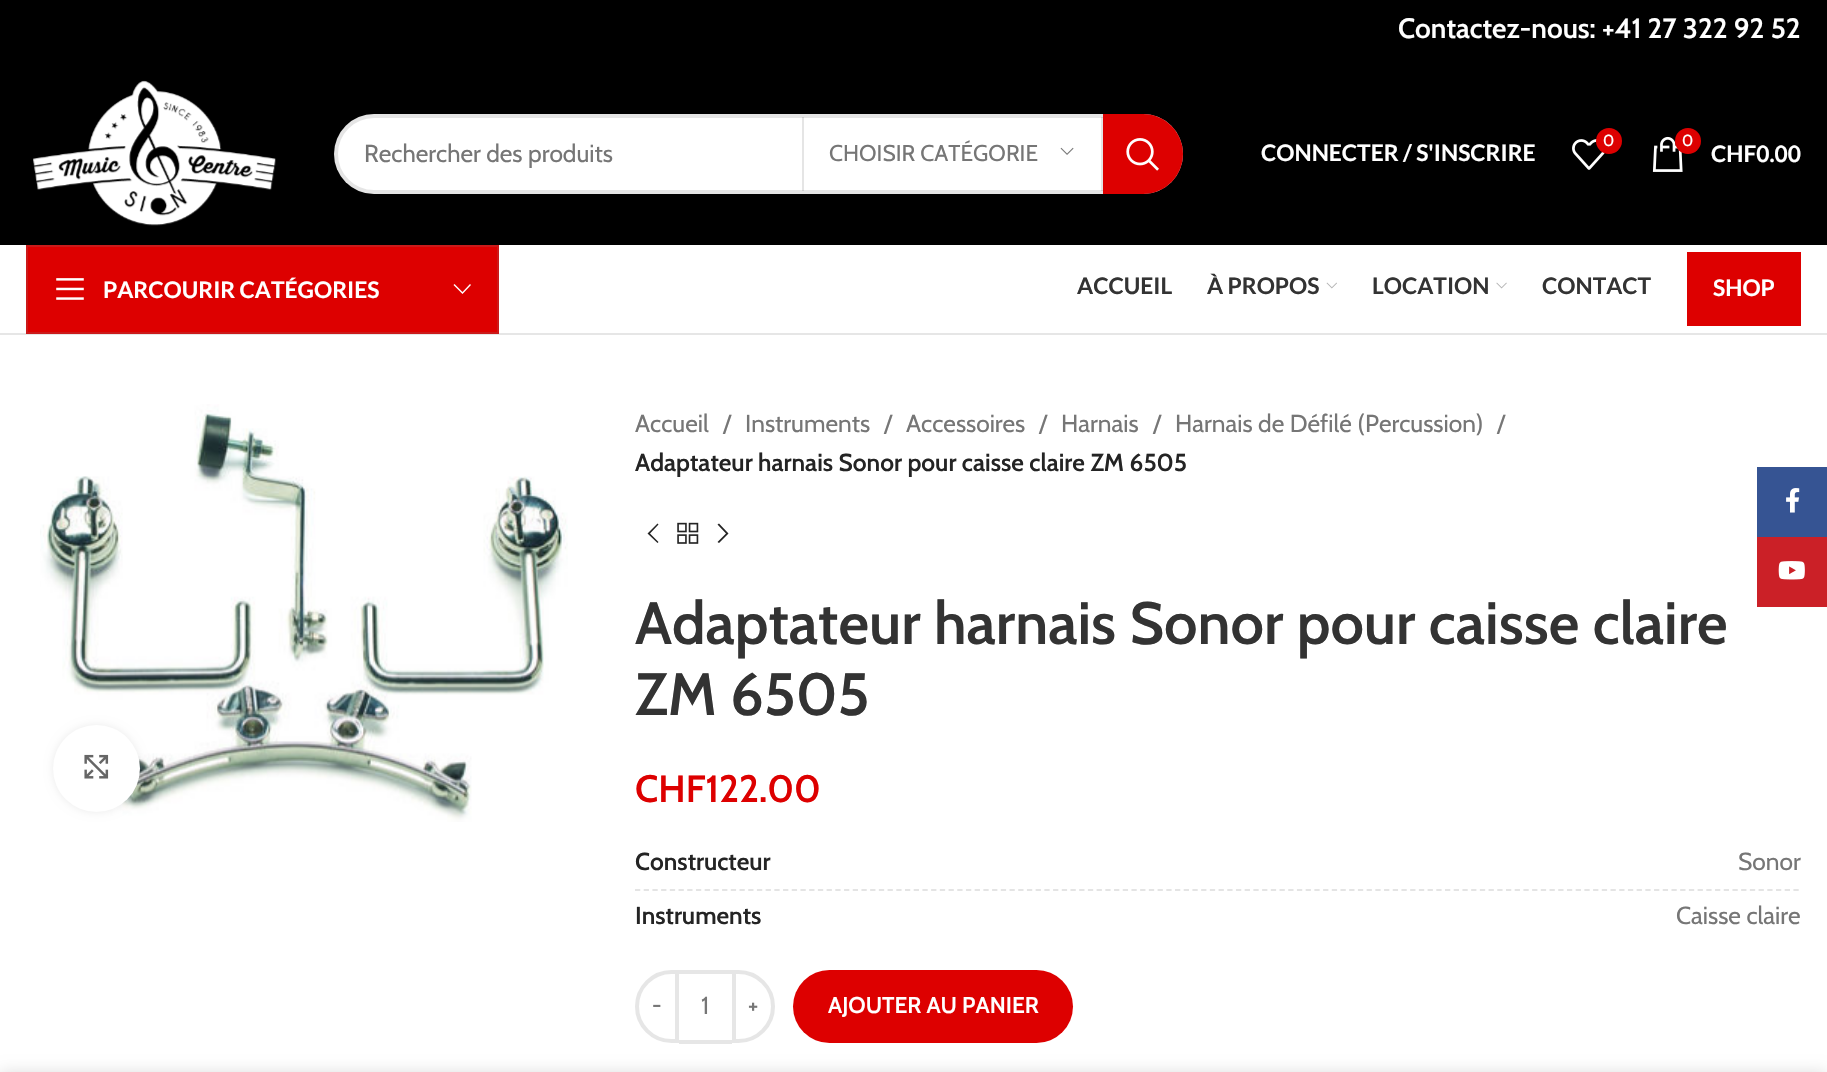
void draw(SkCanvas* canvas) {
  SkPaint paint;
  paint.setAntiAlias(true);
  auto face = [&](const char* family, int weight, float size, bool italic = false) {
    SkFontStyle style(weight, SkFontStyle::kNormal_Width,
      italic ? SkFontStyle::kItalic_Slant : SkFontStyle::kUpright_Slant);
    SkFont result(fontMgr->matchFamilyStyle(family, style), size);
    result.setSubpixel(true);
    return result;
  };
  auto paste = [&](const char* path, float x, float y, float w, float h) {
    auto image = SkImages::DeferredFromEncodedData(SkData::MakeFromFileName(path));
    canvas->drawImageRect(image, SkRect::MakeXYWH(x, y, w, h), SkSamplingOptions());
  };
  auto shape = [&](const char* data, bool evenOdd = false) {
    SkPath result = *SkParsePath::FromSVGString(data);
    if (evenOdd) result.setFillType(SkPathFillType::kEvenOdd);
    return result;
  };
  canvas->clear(0xffffffff);
  paint.setColor(0xff000000);
  canvas->drawRect(SkRect::MakeXYWH(0, 0, 1827, 245), paint);
  paste("img/1.png", 33, 80, 243, 146);
  paint.setColor(0xffffffff);
  canvas->drawRoundRect(SkRect::MakeXYWH(334, 114, 849, 80), 40, 40, paint);
  paint.setStroke(true);
  paint.setStrokeWidth(4);
  paint.setColor(0x1a000000);
  canvas->drawRoundRect(SkRect::MakeXYWH(336, 116, 845, 76), 38, 38, paint);
  paint.setStroke(false);
  canvas->drawRect(SkRect::MakeXYWH(1101, 117, 2, 74), paint);
  canvas->drawRect(SkRect::MakeXYWH(802, 117, 2, 74), paint);
  paste("img/2.png", 1060, 147, 14, 8);
  paint.setColor(0xffdd0000);
  canvas->drawPath(shape("M1103 114H1143C1165 114 1183 132 1183 154C1183 176 1165 194 1143 194H1103Z"), paint);
  paste("img/3.png", 1126, 138, 33, 33);
  paste("img/4.png", 1572, 139, 33, 31);
  canvas->drawCircle(1609, 141, 13, paint);
  paste("img/5.png", 1652, 136, 31, 36);
  canvas->drawCircle(1688, 141, 13, paint);
  paint.setColor(0xffe6e6e6);
  canvas->drawRect(SkRect::MakeXYWH(0, 333, 1827, 2), paint);
  paint.setColor(0xffdd0000);
  canvas->drawRect(SkRect::MakeXYWH(27, 246, 471, 87), paint);
  paint.setStroke(true);
  paint.setStrokeWidth(2);
  paint.setColor(0xffcb1a1a);
  canvas->drawRect(SkRect::MakeXYWH(27, 246, 471, 87), paint);
  paste("img/6.png", 56, 278, 28, 22);
  paint.setStroke(false);
  paint.setColor(0xffffffff);
  canvas->drawPath(shape("M470 284L462.5 292L454.5 284L453.5 285L462.5 294L471 285Z"), paint);
  paste("img/7.png", 1326, 282, 11, 7);
  paste("img/8.png", 1496, 282, 11, 7);
  paint.setColor(0xffdd0000);
  canvas->drawRect(SkRect::MakeXYWH(1687, 252, 114, 74), paint);
  paste("img/9.png", 40, 404, 528, 418);
  paint.setColor(0x14000000);
  paint.setMaskFilter(SkMaskFilter::MakeBlur(kNormal_SkBlurStyle, 4.5f));
  canvas->drawRoundRect(SkRect::MakeXYWH(53, 725, 87, 87), 43.5f, 43.5f, paint);
  paint.setMaskFilter(nullptr);
  paint.setColor(0xffffffff);
  canvas->drawCircle(96.5f, 768.5f, 43.5f, paint);
  paste("img/10.png", 84, 754, 25, 25);
  paint.setColor(0xff242424);
  canvas->drawPath(shape("M658.5 524.5L657.5 523.5L647.5 533.5L657.5 543L658.5 542L650 533.5Z"), paint);
  paste("img/11.png", 677, 522, 22, 22);
  canvas->drawPath(shape("M717.5 524.5L726 533.5L717.5 542L719 543L728.5 533.5L719 523.5Z"), paint);
  paint.setStroke(true);
  paint.setStrokeWidth(1.8f);
  paint.setColor(0xffe4e4e4);
  paint.setPathEffect(SkDashPathEffect::Make({{5.25f, 3.46f}}, 0));
  canvas->drawPath(shape("M635 890H1801"), paint);
  paint.setPathEffect(nullptr);
  paint.setStrokeWidth(4);
  paint.setColor(0xffe6e6e6);
  canvas->drawPath(shape("M671.5 972H677V1041H671.5C652.5 1041 637 1025.5 637 1006.5C637 987.5 652.5 972 671.5 972Z"), paint);
  paint.setStroke(false);
  canvas->drawRect(SkRect::MakeXYWH(679, 970, 53, 4), paint);
  canvas->drawRect(SkRect::MakeXYWH(679, 1040, 53, 4), paint);
  paint.setStroke(true);
  canvas->drawPath(shape("M734 972H738.5C757.5 972 773 987.5 773 1006.5C773 1025.5 757.5 1041 738.5 1041H734Z"), paint);
  paint.setStroke(false);
  paint.setColor(0xffdd0000);
  canvas->drawRoundRect(SkRect::MakeXYWH(793, 970, 280, 73), 36.5f, 36.5f, paint);
  paint.setColor(0xff365493);
  canvas->drawRect(SkRect::MakeXYWH(1757, 467, 70, 70), paint);
  paste("img/12.png", 1786, 488, 14, 25);
  paint.setColor(0xffcb2027);
  canvas->drawRect(SkRect::MakeXYWH(1757, 537, 70, 70), paint);
  paste("img/13.png", 1778, 561, 27, 19);
  paint.setColor(0x24000000);
  paint.setMaskFilter(SkMaskFilter::MakeBlur(kNormal_SkBlurStyle, 8));
  canvas->drawRect(SkRect::MakeXYWH(0, 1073, 1827, 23), paint);
  paint.setMaskFilter(nullptr);
  auto f0 = face("Cabin", 600, 28);
  paint.setColor(0xffffffff);
  canvas->drawString("Contactez-nous: +41 27 322 92 52", 1398, 38, f0, paint);
  auto f1 = face("Cabin", 400, 24.5f);
  paint.setColor(0xff767676);
  canvas->drawString("Rechercher des produits", 364, 162, f1, paint);
  auto f2 = face("Cabin", 400, 22.75f);
  canvas->drawString("CHOISIR CATÉGORIE", 829, 161, f2, paint);
  auto f3 = face("Lato", 700, 22.75f);
  paint.setColor(0xffffffff);
  canvas->drawString("CONNECTER / S'INSCRIRE", 1261, 161, f3, paint);
  auto f4 = face("Cabin", 400, 16);
  canvas->drawString("0", 1603, 146, f4, paint);
  canvas->drawString("0", 1682, 146, f4, paint);
  canvas->drawString("CHF0.00", 1711, 162, f3, paint);
  canvas->drawString("PARCOURIR CATÉGORIES", 103, 298, f3, paint);
  paint.setColor(0xff333333);
  {
    const struct { const char* s; float x, y; } items[] = {
      {"ACCUEIL", 1077, 294},
      {"À PROPOS", 1207, 294},
      {"LOCATION", 1372, 294},
      {"CONTACT", 1542, 294},
    };
    for (auto [s, x, y] : items) {
      canvas->drawString(s, x, y, f3, paint);
    }
  }
  paint.setColor(0xffffffff);
  canvas->drawString("SHOP", 1713, 296, f3, paint);
  paint.setColor(0xff767676);
  {
    const struct { const char* s; float x, y; } items[] = {
      {"Accueil", 635, 432},
      {"/", 723, 432},
      {"Instruments", 745, 432},
      {"/", 884, 432},
      {"Accessoires", 906, 432},
      {"/", 1039, 432},
      {"Harnais", 1061, 432},
      {"/", 1153, 432},
      {"Harnais de Défilé (Percussion)", 1175, 432},
      {"/", 1497, 432},
    };
    for (auto [s, x, y] : items) {
      canvas->drawString(s, x, y, f1, paint);
    }
  }
  auto f5 = face("Cabin", 600, 24.5f);
  paint.setColor(0xff242424);
  canvas->drawString("Adaptateur harnais Sonor pour caisse claire ZM 6505", 635, 471, f5, paint);
  auto f6 = face("Cabin", 600, 59.5f);
  paint.setColor(0xff333333);
  canvas->drawString("Adaptateur harnais Sonor pour caisse claire", 635, 644, f6, paint);
  canvas->drawString("ZM 6505", 635, 715, f6, paint);
  auto f7 = face("Cabin", 600, 38);
  paint.setColor(0xffdd0000);
  canvas->drawString("CHF122.00", 635, 802, f7, paint);
  paint.setColor(0xff242424);
  canvas->drawString("Constructeur", 635, 870, f5, paint);
  paint.setColor(0xff767676);
  canvas->drawString("Sonor", 1738, 870, f1, paint);
  paint.setColor(0xff242424);
  canvas->drawString("Instruments", 635, 924, f5, paint);
  paint.setColor(0xff767676);
  canvas->drawString("Caisse claire", 1676, 924, f1, paint);
  auto f8 = face("Cabin", 600, 22.75f);
  canvas->drawString("-", 652, 1013, f8, paint);
  canvas->drawString("1", 701, 1014, f1, paint);
  canvas->drawString("+", 748, 1013, f8, paint);
  paint.setColor(0xffffffff);
  canvas->drawString("AJOUTER AU PANIER", 828, 1013, f8, paint);
}
